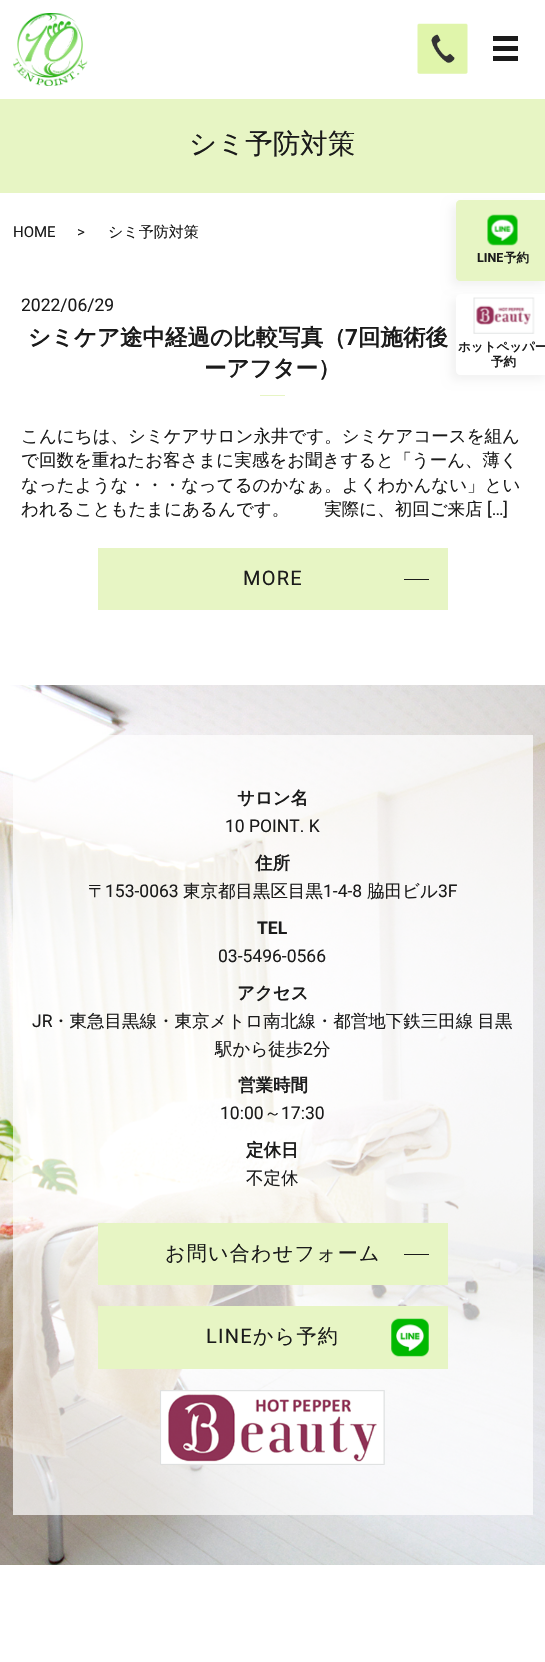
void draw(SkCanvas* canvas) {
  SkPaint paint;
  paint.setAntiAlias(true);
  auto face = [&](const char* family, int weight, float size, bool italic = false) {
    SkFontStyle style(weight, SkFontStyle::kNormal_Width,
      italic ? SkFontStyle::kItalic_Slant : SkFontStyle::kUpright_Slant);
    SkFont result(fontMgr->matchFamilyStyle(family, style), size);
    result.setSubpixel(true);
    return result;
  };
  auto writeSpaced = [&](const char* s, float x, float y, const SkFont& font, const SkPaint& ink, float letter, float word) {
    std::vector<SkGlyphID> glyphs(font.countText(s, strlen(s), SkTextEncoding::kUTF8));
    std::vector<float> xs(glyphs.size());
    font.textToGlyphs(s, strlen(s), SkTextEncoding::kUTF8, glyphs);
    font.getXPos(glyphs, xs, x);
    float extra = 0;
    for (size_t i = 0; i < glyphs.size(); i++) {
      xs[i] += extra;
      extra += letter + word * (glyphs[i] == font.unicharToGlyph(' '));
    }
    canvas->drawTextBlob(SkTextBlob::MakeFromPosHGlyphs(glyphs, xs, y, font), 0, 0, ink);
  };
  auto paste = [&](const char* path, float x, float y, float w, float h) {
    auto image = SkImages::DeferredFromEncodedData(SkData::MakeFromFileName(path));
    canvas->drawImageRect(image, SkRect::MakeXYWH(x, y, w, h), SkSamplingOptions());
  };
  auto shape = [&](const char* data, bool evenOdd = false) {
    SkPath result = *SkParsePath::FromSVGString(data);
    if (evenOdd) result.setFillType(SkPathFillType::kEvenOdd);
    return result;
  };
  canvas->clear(0xffffffff);
  paste("img/1.png", 13, 13, 75, 73);
  paste("img/2.png", 417, 23, 51, 51);
  {
    const struct { float x, y, w, h; SkColor color; } items[] = {
      {493, 36, 25, 5, 0xff1b1b1b},
      {493, 46, 25, 5, 0xff1b1b1b},
      {493, 56, 25, 5, 0xff1b1b1b},
      {0, 99, 545, 94, 0xffe7f5c4},
    };
    for (auto [x, y, w, h, color] : items) {
      paint.setColor(color);
      canvas->drawRect(SkRect::MakeXYWH(x, y, w, h), paint);
    }
  }
  paint.setColor(0x0d000000);
  paint.setMaskFilter(SkMaskFilter::MakeBlur(kNormal_SkBlurStyle, 5));
  canvas->drawRoundRect(SkRect::MakeXYWH(451, 205, 94, 81), 4, 4, paint);
  paint.setMaskFilter(nullptr);
  paint.setColor(0xffe7f5c4);
  canvas->drawPath(shape("M460 200H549V281H460C458 281 456 279 456 277V204C456 202 458 200 460 200Z"), paint);
  paste("img/3.png", 487, 214, 31, 32);
  paint.setColor(0x0d000000);
  paint.setMaskFilter(SkMaskFilter::MakeBlur(kNormal_SkBlurStyle, 5));
  canvas->drawRoundRect(SkRect::MakeXYWH(451, 299, 94, 81), 4, 4, paint);
  paint.setMaskFilter(nullptr);
  paint.setColor(0xffffffff);
  canvas->drawPath(shape("M460 294H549V375H460C458 375 456 373 456 371V298C456 296 458 294 460 294Z"), paint);
  paste("img/4.png", 473, 297, 62, 37);
  {
    const struct { float x, y, w, h; SkColor color; } items[] = {
      {260, 395, 25, 1, 0xffe7f5c4},
      {98, 548, 350, 62, 0xffe7f5c4},
      {404, 579, 25, 1, 0xff1b1b1b},
    };
    for (auto [x, y, w, h, color] : items) {
      paint.setColor(color);
      canvas->drawRect(SkRect::MakeXYWH(x, y, w, h), paint);
    }
  }
  paste("img/5.png", 0, 685, 545, 880);
  {
    const struct { float x, y, w, h; SkColor color; } items[] = {
      {13, 735, 520, 780, 0xb3ffffff},
      {98, 1223, 350, 62, 0xffe7f5c4},
      {404, 1254, 25, 1, 0xff1b1b1b},
      {98, 1306, 350, 63, 0xffe7f5c4},
    };
    for (auto [x, y, w, h, color] : items) {
      paint.setColor(color);
      canvas->drawRect(SkRect::MakeXYWH(x, y, w, h), paint);
    }
  }
  paste("img/6.png", 391, 1318, 38, 39);
  paste("img/7.png", 160, 1390, 225, 75);
  auto f0 = face("WenQuanYi Zen Hei", 500, 27.5f);
  paint.setColor(0xff1b1b1b);
  canvas->drawString("シミ予防対策", 189, 153, f0, paint);
  auto f1 = face("Roboto", 400, 15);
  canvas->drawString("HOME", 13, 237, f1, paint);
  canvas->drawString(">", 77, 237, f1, paint);
  auto f2 = face("WenQuanYi Zen Hei", 500, 15);
  canvas->drawString("シミ予防対策", 108, 237, f2, paint);
  auto f3 = face("Roboto", 700, 12.5f);
  canvas->drawString("LINE", 477, 262, f3, paint);
  auto f4 = face("WenQuanYi Zen Hei", 700, 12.5f);
  {
    const struct { const char* s; float x, y; } items[] = {
      {"予約", 504, 262},
      {"ホットペッパー", 458, 351},
      {"予約", 491, 366},
    };
    for (auto [s, x, y] : items) {
      canvas->drawString(s, x, y, f4, paint);
    }
  }
  auto f5 = face("Roboto", 400, 17.5f);
  canvas->drawString("2022/06/29", 21, 311, f5, paint);
  auto f6 = face("WenQuanYi Zen Hei", 700, 22.5f);
  canvas->drawString("シミケア途中経過の比較写真（", 28, 345, f6, paint);
  auto f7 = face("Roboto", 700, 22.5f);
  canvas->drawString("7", 345, 345, f7, paint);
  canvas->drawString("回施術後", 358, 345, f6, paint);
  canvas->drawString("ーアフター）", 204, 376, f6, paint);
  auto f8 = face("WenQuanYi Zen Hei", 500, 17.5f);
  {
    const struct { const char* s; float x, y; } items[] = {
      {"こんにちは、シミケアサロン永井です。シミケアコースを組ん", 21, 442},
      {"で回数を重ねたお客さまに実感をお聞きすると「うーん、薄く", 21, 466},
      {"なったような・・・なってるのかなぁ。よくわかんない」とい", 21, 491},
      {"われることもたまにあるんです。　　実際に、初回ご来店", 21, 515},
    };
    for (auto [s, x, y] : items) {
      canvas->drawString(s, x, y, f8, paint);
    }
  }
  canvas->drawString("[…]", 487, 515, f5, paint);
  auto f9 = face("Roboto", 400, 20);
  writeSpaced("MORE", 243, 585, f9, paint, 1.25f, 0);
  auto f10 = face("WenQuanYi Zen Hei", 700, 17.5f);
  canvas->drawString("サロン名", 237, 804, f10, paint);
  canvas->drawString("10 POINT. K", 225, 832, f5, paint);
  canvas->drawString("住所", 255, 869, f10, paint);
  canvas->drawString("〒", 88, 897, f8, paint);
  canvas->drawString("153-0063", 105, 897, f5, paint);
  canvas->drawString("東京都目黒区目黒", 183, 897, f8, paint);
  canvas->drawString("1-4-8", 323, 897, f5, paint);
  canvas->drawString("脇田ビル", 367, 897, f8, paint);
  canvas->drawString("3F", 438, 897, f5, paint);
  auto f11 = face("Roboto", 700, 17.5f);
  canvas->drawString("TEL", 257, 934, f11, paint);
  canvas->drawString("03-5496-0566", 218, 962, f5, paint);
  canvas->drawString("アクセス", 237, 999, f10, paint);
  canvas->drawString("JR", 32, 1027, f5, paint);
  writeSpaced("・東急目黒線・東京メトロ南北線・都営地下鉄三田線 目黒", 52, 1027, f8, paint, 0, -1);
  canvas->drawString("駅から徒歩", 215, 1055, f8, paint);
  canvas->drawString("2", 303, 1055, f5, paint);
  canvas->drawString("分", 313, 1055, f8, paint);
  canvas->drawString("営業時間", 238, 1091, f10, paint);
  canvas->drawString("10:00", 220, 1119, f5, paint);
  canvas->drawString("～", 264, 1119, f8, paint);
  canvas->drawString("17:30", 281, 1119, f5, paint);
  canvas->drawString("定休日", 246, 1156, f10, paint);
  canvas->drawString("不定休", 246, 1184, f8, paint);
  auto f12 = face("WenQuanYi Zen Hei", 500, 20);
  writeSpaced("お問い合わせフォーム", 165, 1260, f12, paint, 1.25f, 0);
  writeSpaced("LINE", 206, 1343, f9, paint, 1.25f, 0);
  writeSpaced("から予約", 253, 1343, f12, paint, 1.25f, 0);
}
